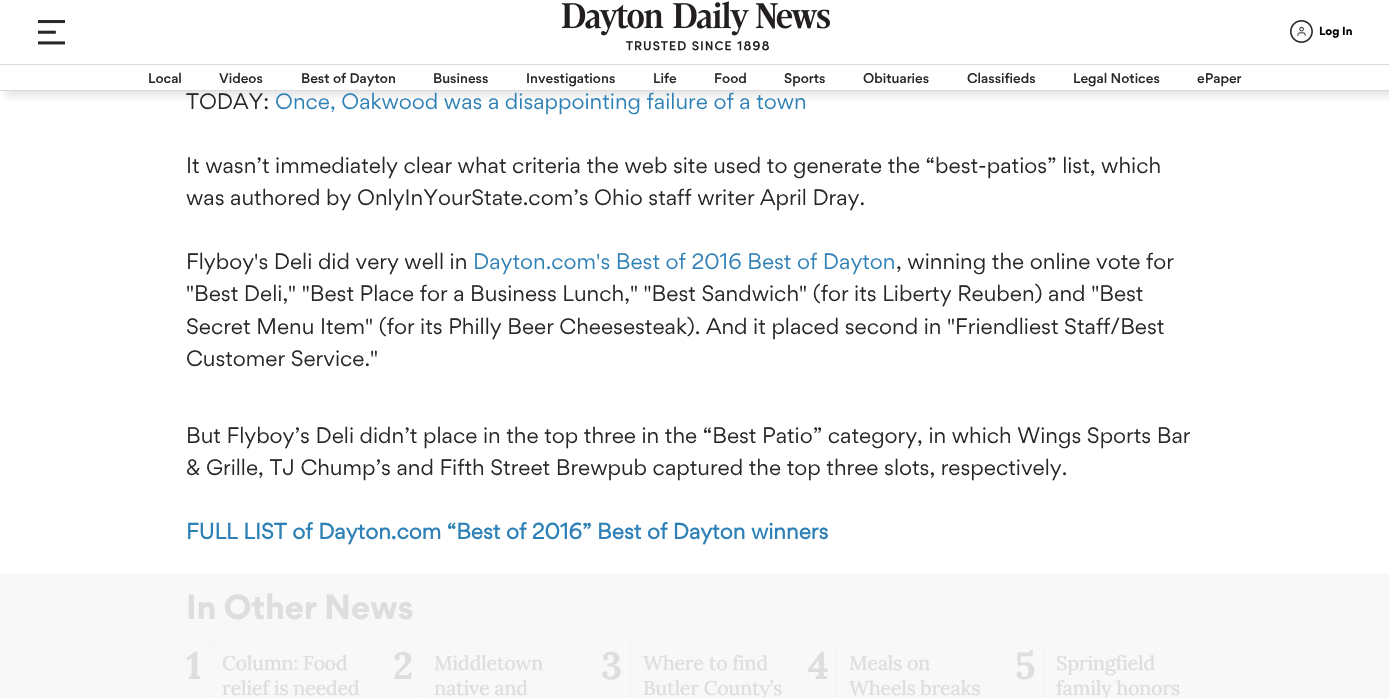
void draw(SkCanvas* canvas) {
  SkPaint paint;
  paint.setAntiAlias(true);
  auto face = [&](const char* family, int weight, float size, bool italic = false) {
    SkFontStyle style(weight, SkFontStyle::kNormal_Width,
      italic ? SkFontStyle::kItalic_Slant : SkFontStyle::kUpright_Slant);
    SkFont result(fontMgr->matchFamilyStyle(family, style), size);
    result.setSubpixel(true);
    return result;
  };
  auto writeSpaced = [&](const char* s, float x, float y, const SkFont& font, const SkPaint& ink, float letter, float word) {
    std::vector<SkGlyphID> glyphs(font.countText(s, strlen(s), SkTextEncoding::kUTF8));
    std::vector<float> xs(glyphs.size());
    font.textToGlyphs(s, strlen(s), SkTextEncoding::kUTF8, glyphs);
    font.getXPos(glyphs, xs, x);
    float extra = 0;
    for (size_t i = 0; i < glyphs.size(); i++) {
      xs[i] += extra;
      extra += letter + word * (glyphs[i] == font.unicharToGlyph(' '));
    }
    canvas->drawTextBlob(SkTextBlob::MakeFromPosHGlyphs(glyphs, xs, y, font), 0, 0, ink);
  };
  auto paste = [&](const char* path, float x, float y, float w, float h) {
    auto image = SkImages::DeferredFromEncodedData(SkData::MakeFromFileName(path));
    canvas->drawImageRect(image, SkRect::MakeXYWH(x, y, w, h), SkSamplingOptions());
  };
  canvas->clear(0xffffffff);
  paint.setColor(0xfff8f8f8);
  canvas->drawRect(SkRect::MakeXYWH(0, 574, 1389, 124), paint);
  paste("img/1.png", 38, 20, 27, 25);
  paste("img/2.png", 561, 1, 269, 50);
  paste("img/3.png", 1290, 20, 23, 23);
  canvas->save();
  canvas->clipRect(SkRect::MakeXYWH(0, 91, 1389, 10));
  paint.setColor(0x38858585);
  paint.setMaskFilter(SkMaskFilter::MakeBlur(kNormal_SkBlurStyle, 4));
  canvas->drawRect(SkRect::MakeXYWH(5, 69, 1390, 27), paint);
  paint.setMaskFilter(nullptr);
  canvas->restore();
  {
    const struct { float x, y, w, h; SkColor color; } items[] = {
      {0, 64, 1389, 1, 0xffdadada},
      {0, 90, 1389, 1, 0xffdadada},
      {433, 606, 771, 1, 0xfff3f3f3},
      {211, 641, 25, 1, 0xfff3f3f3},
      {210, 641, 1, 57, 0xfff3f3f3},
      {423, 641, 25, 1, 0xfff3f3f3},
      {421, 641, 1, 57, 0xfff3f3f3},
      {631, 641, 25, 1, 0xfff3f3f3},
      {630, 641, 1, 57, 0xfff3f3f3},
      {838, 641, 25, 1, 0xfff3f3f3},
      {836, 641, 1, 57, 0xfff3f3f3},
      {1045, 641, 25, 1, 0xfff3f3f3},
      {1044, 641, 1, 57, 0xfff3f3f3},
    };
    for (auto [x, y, w, h, color] : items) {
      paint.setColor(color);
      canvas->drawRect(SkRect::MakeXYWH(x, y, w, h), paint);
    }
  }
  auto f0 = face("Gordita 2", 700, 10.5f);
  paint.setColor(0xff000000);
  canvas->drawString("Log In", 1319, 35, f0, paint);
  auto f1 = face("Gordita", 500, 12.5f);
  paint.setColor(0xff282828);
  {
    const struct { const char* s; float x, y; } items[] = {
      {"Local", 148, 83},
      {"Videos", 219, 83},
      {"Best of Dayton", 301, 83},
      {"Business", 433, 83},
      {"Investigations", 526, 83},
      {"Life", 653, 83},
      {"Food", 714, 83},
      {"Sports", 784, 83},
      {"Obituaries", 863, 83},
      {"Classifieds", 967, 83},
      {"Legal Notices", 1073, 83},
      {"ePaper", 1197, 83},
    };
    for (auto [s, x, y] : items) {
      canvas->drawString(s, x, y, f1, paint);
    }
  }
  auto f2 = face("Gordita", 400, 20);
  canvas->drawString("TODAY:", 186, 109, f2, paint);
  paint.setColor(0xff2e81b7);
  canvas->drawString("Once, Oakwood was a disappointing failure of a town", 275, 109, f2, paint);
  paint.setColor(0xff282828);
  {
    const struct { const char* s; float x, y; } items[] = {
      {"It wasn’t immediately clear what criteria the web site used to generate the “best-patios” list, which", 186, 173},
      {"was authored by OnlyInYourState.com’s Ohio staff writer April Dray.", 186, 205},
      {"Flyboy's Deli did very well in", 186, 269},
    };
    for (auto [s, x, y] : items) {
      canvas->drawString(s, x, y, f2, paint);
    }
  }
  paint.setColor(0xff2e81b7);
  canvas->drawString("Dayton.com's Best of 2016 Best of Dayton", 473, 269, f2, paint);
  paint.setColor(0xff282828);
  {
    const struct { const char* s; float x, y; } items[] = {
      {", winning the online vote for", 896, 269},
      {"\"Best Deli,\" \"Best Place for a Business Lunch,\" \"Best Sandwich\" (for its Liberty Reuben) and \"Best", 186, 301},
      {"Secret Menu Item\" (for its Philly Beer Cheesesteak). And it placed second in \"Friendliest Staff/Best", 186, 334},
      {"Customer Service.\"", 186, 366},
      {"But Flyboy’s Deli didn’t place in the top three in the “Best Patio” category, in which Wings Sports Bar", 186, 443},
      {"& Grille, TJ Chump’s and Fifth Street Brewpub captured the top three slots, respectively.", 186, 475},
    };
    for (auto [s, x, y] : items) {
      canvas->drawString(s, x, y, f2, paint);
    }
  }
  auto f3 = face("Gordita", 700, 20);
  paint.setColor(0xff2e81b7);
  canvas->drawString("FULL LIST of Dayton.com “Best of 2016” Best of Dayton winners", 186, 539, f3, paint);
  auto f4 = face("Gordita 2", 700, 31.25f);
  paint.setColor(0xffdedede);
  writeSpaced("In Other News", 186, 619, f4, paint, -0.4f, 0);
  auto f5 = face("Lora", 700, 38);
  canvas->drawString("1", 186, 679, f5, paint);
  auto f6 = face("Lora", 500, 20);
  writeSpaced("Column: Food", 222, 670, f6, paint, -0.4f, 0);
  writeSpaced("relief is needed", 222, 695, f6, paint, -0.4f, 0);
  canvas->drawString("2", 393, 679, f5, paint);
  writeSpaced("Middletown", 434, 670, f6, paint, -0.4f, 0);
  writeSpaced("native and", 434, 695, f6, paint, -0.4f, 0);
  canvas->drawString("3", 601, 679, f5, paint);
  writeSpaced("Where to find", 643, 670, f6, paint, -0.4f, 0);
  writeSpaced("Butler County’s", 643, 695, f6, paint, -0.4f, 0);
  canvas->drawString("4", 808, 679, f5, paint);
  writeSpaced("Meals on", 849, 670, f6, paint, -0.4f, 0);
  writeSpaced("Wheels breaks", 849, 695, f6, paint, -0.4f, 0);
  canvas->drawString("5", 1015, 679, f5, paint);
  writeSpaced("Springfield", 1056, 670, f6, paint, -0.4f, 0);
  writeSpaced("family honors", 1056, 695, f6, paint, -0.4f, 0);
}
